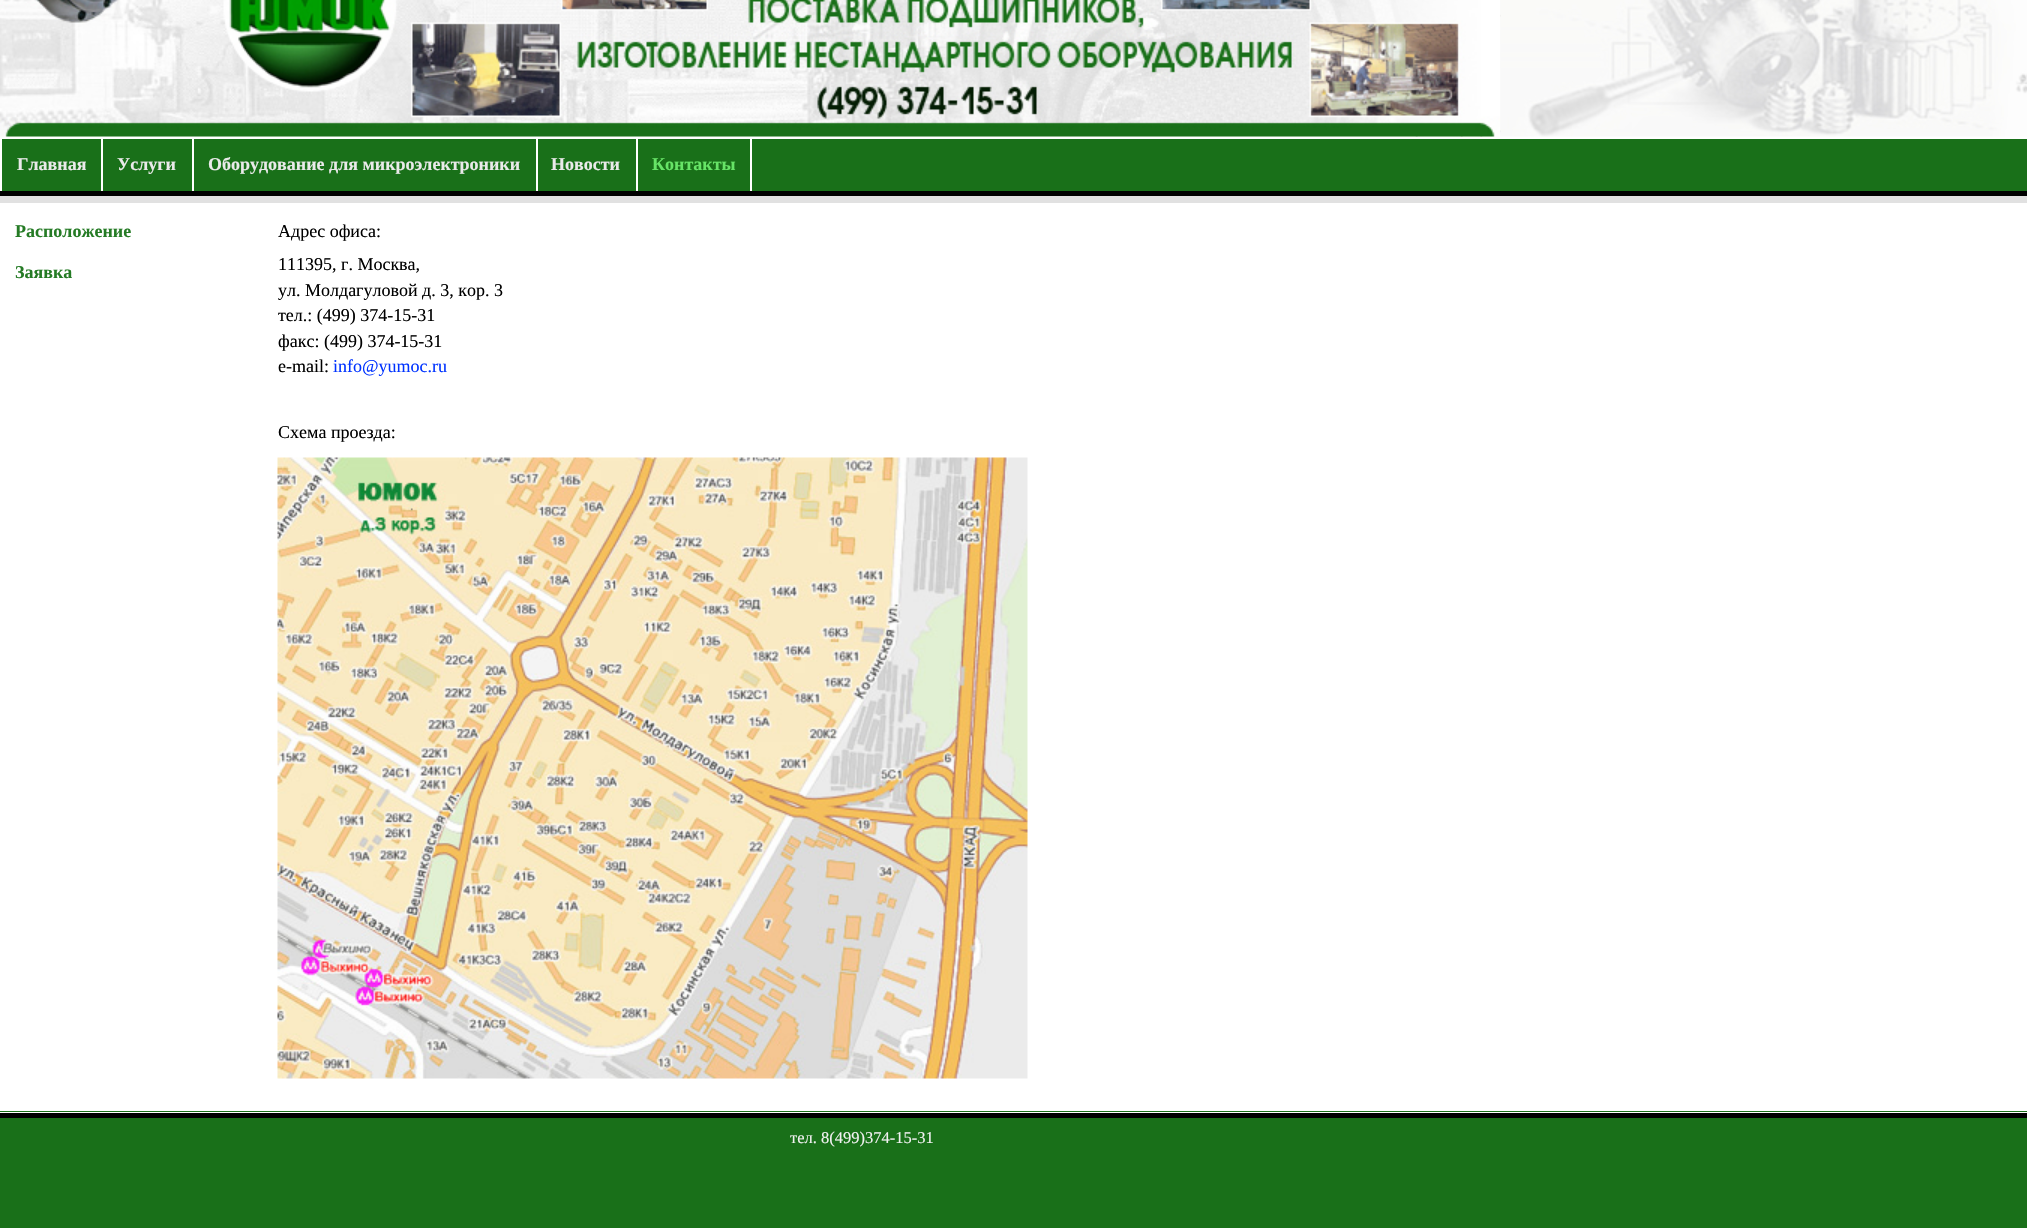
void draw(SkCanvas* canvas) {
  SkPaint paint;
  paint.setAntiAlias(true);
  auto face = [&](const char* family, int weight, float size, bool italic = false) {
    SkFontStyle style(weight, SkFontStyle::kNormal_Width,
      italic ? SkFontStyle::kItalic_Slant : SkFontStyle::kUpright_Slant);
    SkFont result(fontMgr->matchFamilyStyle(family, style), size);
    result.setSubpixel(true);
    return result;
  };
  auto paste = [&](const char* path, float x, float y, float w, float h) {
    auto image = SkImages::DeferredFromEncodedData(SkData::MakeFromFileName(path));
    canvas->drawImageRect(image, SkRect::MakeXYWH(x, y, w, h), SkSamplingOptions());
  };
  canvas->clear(0xffe1e1e1);
  paint.setColor(0xffffffff);
  canvas->drawRect(SkRect::MakeXYWH(0, 136, 2027, 1), paint);
  paste("img/1.png", 0, 0, 2027, 137);
  paste("img/2.png", 0, 0, 1500, 137);
  {
    const struct { float x, y, w, h; SkColor color; } items[] = {
      {2, 139, 2025, 52, 0xff197019},
      {0, 137, 2027, 2, 0xffffffff},
      {0, 137, 2, 54, 0xffffffff},
      {101, 137, 2, 54, 0xffffffff},
      {192, 137, 2, 54, 0xffffffff},
      {536, 137, 2, 54, 0xffffffff},
      {636, 137, 2, 54, 0xffffffff},
      {750, 137, 2, 54, 0xffffffff},
      {0, 191, 2027, 5, 0xff000000},
      {0, 203, 2027, 908, 0xffffffff},
    };
    for (auto [x, y, w, h, color] : items) {
      paint.setColor(color);
      canvas->drawRect(SkRect::MakeXYWH(x, y, w, h), paint);
    }
  }
  paste("img/3.png", 277, 457, 751, 622);
  {
    const struct { float x, y, w, h; SkColor color; } items[] = {
      {0, 1111, 2027, 117, 0xff197019},
      {0, 1112, 2027, 1, 0xffffffff},
      {0, 1113, 2027, 5, 0xff000000},
    };
    for (auto [x, y, w, h, color] : items) {
      paint.setColor(color);
      canvas->drawRect(SkRect::MakeXYWH(x, y, w, h), paint);
    }
  }
  auto f0 = face("Liberation Serif", 700, 18);
  paint.setColor(0xffeaeaea);
  {
    const struct { const char* s; float x, y; } items[] = {
      {"Главная", 17, 170},
      {"Услуги", 117, 170},
      {"Оборудование для микроэлектроники", 208, 170},
      {"Новости", 551, 170},
    };
    for (auto [s, x, y] : items) {
      canvas->drawString(s, x, y, f0, paint);
    }
  }
  paint.setColor(0xff67e467);
  canvas->drawString("Контакты", 652, 170, f0, paint);
  paint.setColor(0xff257b25);
  canvas->drawString("Расположение", 15, 237, f0, paint);
  canvas->drawString("Заявка", 15, 278, f0, paint);
  auto f1 = face("Liberation Serif", 400, 18);
  paint.setColor(0xff000000);
  {
    const struct { const char* s; float x, y; } items[] = {
      {"Адрес офиса:", 278, 237},
      {"111395, г. Москва,", 278, 270},
      {"ул. Молдагуловой д. 3, кор. 3", 278, 296},
      {"тел.: (499) 374-15-31", 278, 321},
      {"факс: (499) 374-15-31", 278, 347},
      {"e-mail:", 278, 372},
    };
    for (auto [s, x, y] : items) {
      canvas->drawString(s, x, y, f1, paint);
    }
  }
  paint.setColor(0xff0033ff);
  canvas->drawString("info@yumoc.ru", 333, 372, f1, paint);
  paint.setColor(0xff000000);
  canvas->drawString("Схема проезда:", 278, 438, f1, paint);
  auto f2 = face("Liberation Serif", 400, 16.5f);
  paint.setColor(0xfff1f1f1);
  canvas->drawString("тел. 8(499)374-15-31", 790, 1143, f2, paint);
}
